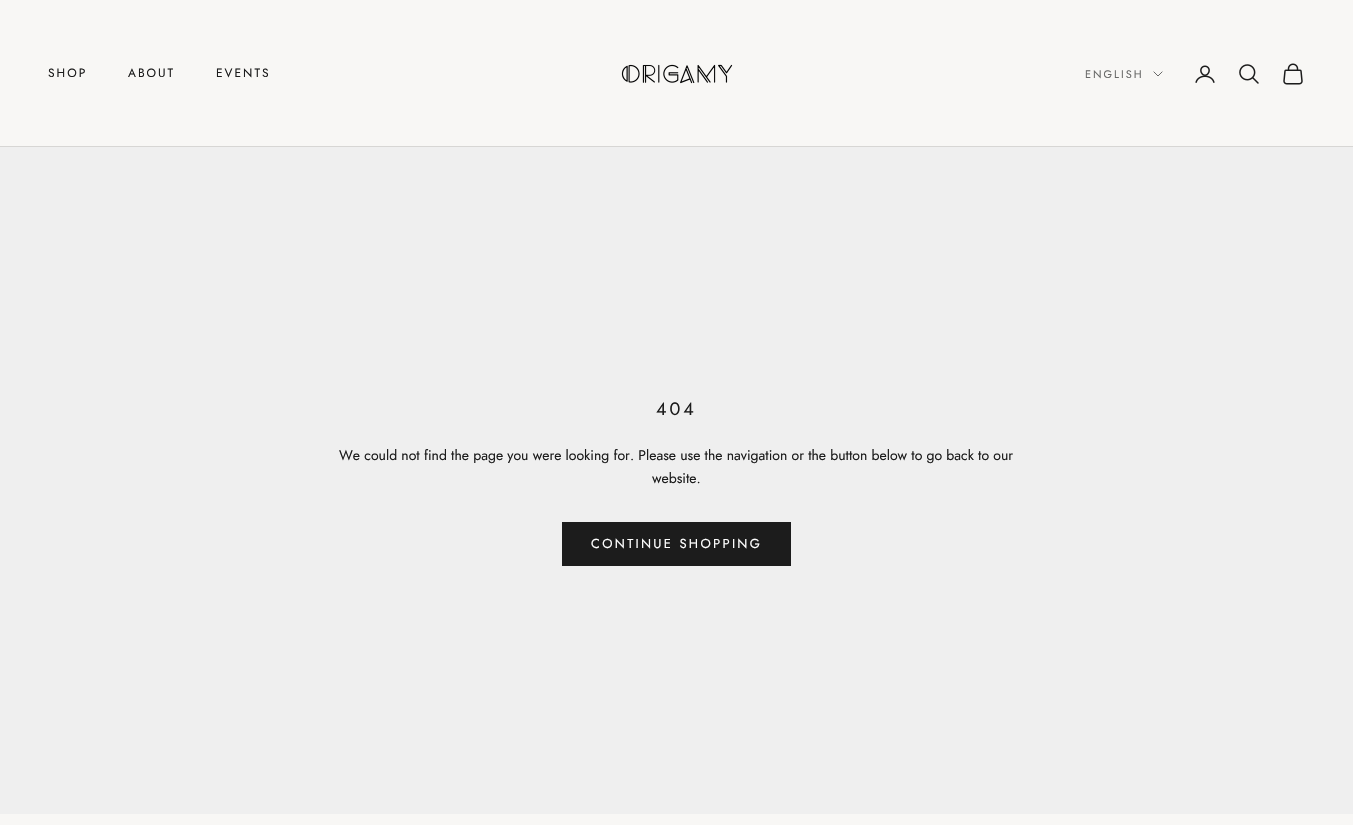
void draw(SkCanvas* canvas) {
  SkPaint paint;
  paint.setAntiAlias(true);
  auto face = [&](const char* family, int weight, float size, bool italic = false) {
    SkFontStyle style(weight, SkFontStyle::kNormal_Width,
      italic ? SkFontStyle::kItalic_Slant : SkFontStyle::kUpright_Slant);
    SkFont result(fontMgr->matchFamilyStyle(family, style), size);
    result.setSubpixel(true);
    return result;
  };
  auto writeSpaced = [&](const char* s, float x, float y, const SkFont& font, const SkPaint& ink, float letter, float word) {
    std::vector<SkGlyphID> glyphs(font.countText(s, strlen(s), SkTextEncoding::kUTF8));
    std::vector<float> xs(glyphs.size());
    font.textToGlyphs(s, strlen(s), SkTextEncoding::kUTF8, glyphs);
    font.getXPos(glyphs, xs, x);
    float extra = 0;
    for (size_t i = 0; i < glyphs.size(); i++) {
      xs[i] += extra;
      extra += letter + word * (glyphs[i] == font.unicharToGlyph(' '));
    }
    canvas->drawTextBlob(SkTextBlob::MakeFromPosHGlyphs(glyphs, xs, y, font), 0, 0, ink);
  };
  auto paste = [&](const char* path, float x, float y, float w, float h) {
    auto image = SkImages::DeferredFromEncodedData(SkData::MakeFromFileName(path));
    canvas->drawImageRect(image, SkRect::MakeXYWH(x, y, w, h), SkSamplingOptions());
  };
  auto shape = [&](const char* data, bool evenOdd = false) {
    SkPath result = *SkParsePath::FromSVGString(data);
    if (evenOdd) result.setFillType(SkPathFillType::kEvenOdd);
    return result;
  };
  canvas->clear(0xffefefef);
  paint.setColor(0xfff8f7f5);
  canvas->drawRect(SkRect::MakeXYWH(0, 0, 1353, 146), paint);
  paint.setColor(0xffd7d6d4);
  canvas->drawRect(SkRect::MakeXYWH(0, 146, 1353, 1), paint);
  paste("img/1.png", 621, 64, 112, 20);
  paint.setStroke(true);
  paint.setStrokeWidth(1);
  paint.setStrokeCap(SkPaint::kSquare_Cap);
  paint.setColor(0xff696968);
  canvas->drawPath(shape("M1154 72L1158 76L1162 72"), paint);
  paste("img/2.png", 1195, 65, 20, 18);
  paste("img/3.png", 1239, 64, 20, 20);
  paste("img/4.png", 1283, 63, 20, 22);
  paint.setStroke(false);
  paint.setColor(0xff1c1c1c);
  canvas->drawRect(SkRect::MakeXYWH(562.5f, 522.5f, 228, 43), paint);
  paint.setStroke(true);
  paint.setStrokeCap(SkPaint::kButt_Cap);
  canvas->drawRect(SkRect::MakeXYWH(562.5f, 522.5f, 228, 43), paint);
  paint.setStroke(false);
  paint.setColor(0xfff8f7f5);
  canvas->drawRect(SkRect::MakeXYWH(0, 814, 1353, 11), paint);
  auto f0 = face("Jost", 400, 12);
  paint.setColor(0xff1c1c1c);
  {
    const struct { const char* s; float x, y; } items[] = {
      {"SHOP", 48, 77},
      {"ABOUT", 128, 77},
      {"EVENTS", 216, 77},
    };
    for (auto [s, x, y] : items) {
      writeSpaced(s, x, y, f0, paint, 2, 0);
    }
  }
  auto f1 = face("Jost", 400, 11);
  paint.setColor(0xff696968);
  writeSpaced("ENGLISH", 1085, 78, f1, paint, 2, 0);
  auto f2 = face("Jost", 400, 18);
  paint.setColor(0xff1c1c1c);
  writeSpaced("404", 656, 415, f2, paint, 3, 0);
  auto f3 = face("Jost", 400, 14);
  canvas->drawString("We could not find the page you were looking for. Please use the navigation or the button below to go back to our", 339, 460, f3, paint);
  canvas->drawString("website.", 652, 483, f3, paint);
  auto f4 = face("Jost", 400, 13);
  paint.setColor(0xffffffff);
  writeSpaced("CONTINUE SHOPPING", 591, 548, f4, paint, 2.3f, 0);
}
